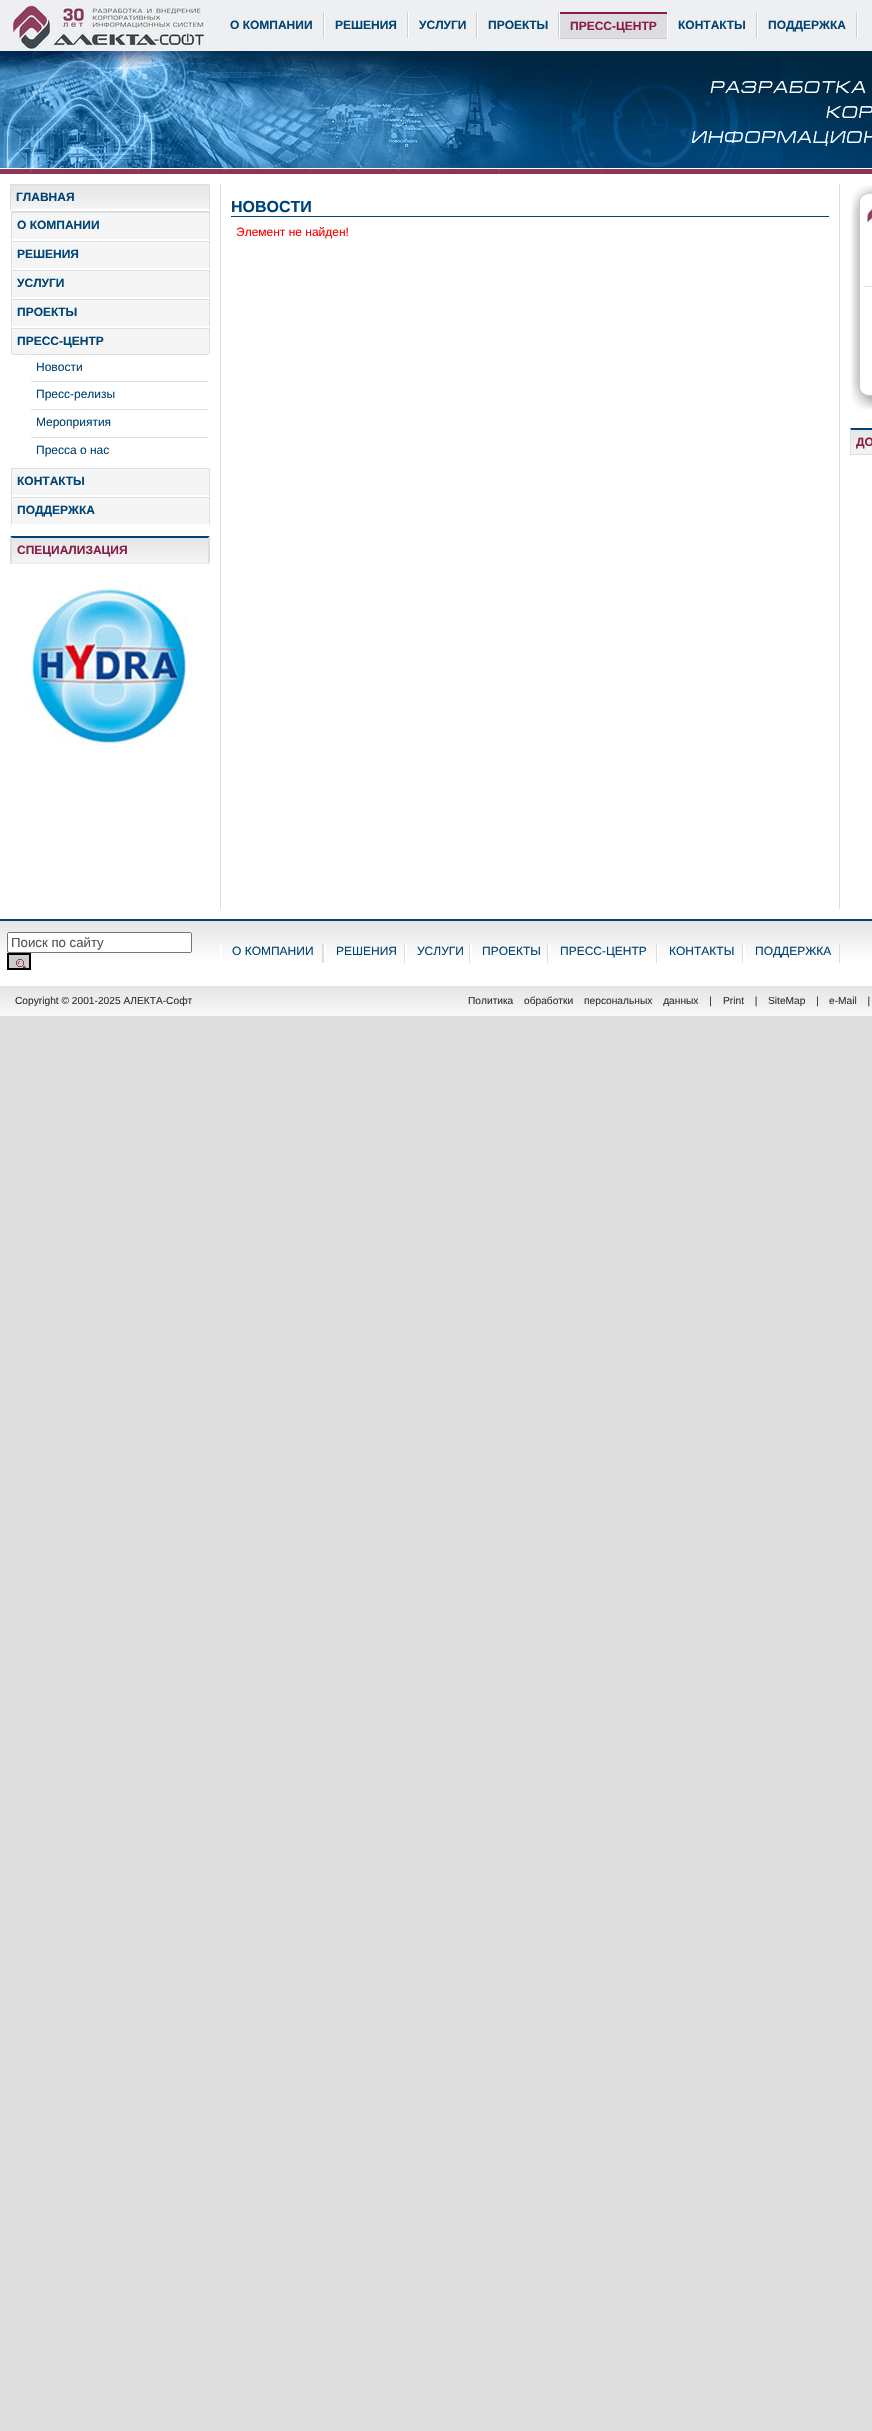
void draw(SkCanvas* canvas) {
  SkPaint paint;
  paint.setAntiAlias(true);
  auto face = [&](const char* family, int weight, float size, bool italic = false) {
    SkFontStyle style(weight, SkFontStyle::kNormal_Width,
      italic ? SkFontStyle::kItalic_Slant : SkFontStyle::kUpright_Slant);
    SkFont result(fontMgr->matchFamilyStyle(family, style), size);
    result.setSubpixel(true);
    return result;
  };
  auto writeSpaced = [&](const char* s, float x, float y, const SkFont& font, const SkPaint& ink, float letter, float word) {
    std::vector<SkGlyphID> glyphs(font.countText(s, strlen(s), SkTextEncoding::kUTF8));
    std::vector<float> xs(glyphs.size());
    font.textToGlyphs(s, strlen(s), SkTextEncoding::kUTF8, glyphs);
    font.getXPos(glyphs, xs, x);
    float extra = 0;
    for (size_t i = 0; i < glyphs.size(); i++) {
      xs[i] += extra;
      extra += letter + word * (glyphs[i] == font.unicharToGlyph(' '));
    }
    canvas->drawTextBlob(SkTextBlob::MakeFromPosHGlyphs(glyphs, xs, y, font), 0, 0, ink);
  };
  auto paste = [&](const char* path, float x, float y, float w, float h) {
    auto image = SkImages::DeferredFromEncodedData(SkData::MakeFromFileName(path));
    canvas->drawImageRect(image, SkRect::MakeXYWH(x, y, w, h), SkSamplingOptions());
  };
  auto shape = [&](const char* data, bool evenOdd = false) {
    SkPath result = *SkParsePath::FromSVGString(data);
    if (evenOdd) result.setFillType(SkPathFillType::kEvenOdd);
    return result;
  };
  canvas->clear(0xffdddddd);
  paint.setColor(0xffeeeff0);
  canvas->drawRect(SkRect::MakeXYWH(0, 0, 872, 51), paint);
  paste("img/1.png", 10, 1, 200, 50);
  {
    const struct { float x, y, w, h; SkColor color; } items[] = {
      {324, 12, 1, 26, 0xffffffff},
      {323, 12, 1, 26, 0xffcecfd2},
      {408, 12, 1, 26, 0xffffffff},
      {407, 12, 1, 26, 0xffcecfd2},
      {477, 12, 1, 26, 0xffffffff},
      {476, 12, 1, 26, 0xffcecfd2},
      {559, 12, 1, 26, 0xffffffff},
      {558, 12, 1, 26, 0xffcecfd2},
      {667, 12, 1, 27, 0xffffffff},
      {560, 14, 107, 24, 0xffdddde0},
      {560, 12, 107, 2, 0xff871c48},
      {560, 38, 107, 1, 0xffcecfd2},
      {757, 12, 1, 26, 0xffffffff},
      {756, 12, 1, 26, 0xffcecfd2},
      {857, 12, 1, 26, 0xffffffff},
      {856, 12, 1, 26, 0xffcecfd2},
    };
    for (auto [x, y, w, h, color] : items) {
      paint.setColor(color);
      canvas->drawRect(SkRect::MakeXYWH(x, y, w, h), paint);
    }
  }
  paste("img/2.png", 0, 51, 872, 123);
  paint.setColor(0xffffffff);
  canvas->drawRect(SkRect::MakeXYWH(0, 174, 872, 745), paint);
  paint.setColor(0xffdbdfe1);
  canvas->drawRect(SkRect::MakeXYWH(220, 184, 1, 725), paint);
  paste("img/3.png", 10, 185, 200, 26);
  paint.setColor(0xffdddddd);
  canvas->drawRect(SkRect::MakeXYWH(10, 184, 200, 1), paint);
  canvas->drawPath(shape("M210 184V211L209 209V185Z"), paint);
  paint.setColor(0xffffffff);
  canvas->drawPath(shape("M210 211H10L11 209H209Z"), paint);
  paint.setColor(0xffdddddd);
  canvas->drawPath(shape("M10 211V184L11 185V209Z"), paint);
  {
    const struct { float x, y, w, h; SkColor color; } items[] = {
      {10, 211, 200, 1, 0xffdbdfe1},
      {10, 211, 1, 1, 0xffffffff},
      {12, 213, 197, 26, 0xfff5f5f5},
      {11, 212, 199, 1, 0xffdbdfe1},
    };
    for (auto [x, y, w, h, color] : items) {
      paint.setColor(color);
      canvas->drawRect(SkRect::MakeXYWH(x, y, w, h), paint);
    }
  }
  canvas->drawPath(shape("M210 212V241L209 239V213Z"), paint);
  paint.setColor(0xffffffff);
  canvas->drawPath(shape("M210 241H11L12 239H209Z"), paint);
  paint.setColor(0xffdbdfe1);
  canvas->drawPath(shape("M11 241V212L12 213V239Z"), paint);
  paint.setColor(0xfff5f5f5);
  canvas->drawRect(SkRect::MakeXYWH(12, 242, 197, 26), paint);
  paint.setColor(0xffdbdfe1);
  canvas->drawRect(SkRect::MakeXYWH(11, 241, 199, 1), paint);
  canvas->drawPath(shape("M210 241V270L209 268V242Z"), paint);
  paint.setColor(0xffffffff);
  canvas->drawPath(shape("M210 270H11L12 268H209Z"), paint);
  paint.setColor(0xffdbdfe1);
  canvas->drawPath(shape("M11 270V241L12 242V268Z"), paint);
  paint.setColor(0xfff5f5f5);
  canvas->drawRect(SkRect::MakeXYWH(12, 271, 197, 26), paint);
  paint.setColor(0xffdbdfe1);
  canvas->drawRect(SkRect::MakeXYWH(11, 270, 199, 1), paint);
  canvas->drawPath(shape("M210 270V299L209 297V271Z"), paint);
  paint.setColor(0xffffffff);
  canvas->drawPath(shape("M210 299H11L12 297H209Z"), paint);
  paint.setColor(0xffdbdfe1);
  canvas->drawPath(shape("M11 299V270L12 271V297Z"), paint);
  paint.setColor(0xfff5f5f5);
  canvas->drawRect(SkRect::MakeXYWH(12, 300, 197, 26), paint);
  paint.setColor(0xffdbdfe1);
  canvas->drawRect(SkRect::MakeXYWH(11, 299, 199, 1), paint);
  canvas->drawPath(shape("M210 299V328L209 326V300Z"), paint);
  paint.setColor(0xffffffff);
  canvas->drawPath(shape("M210 328H11L12 326H209Z"), paint);
  paint.setColor(0xffdbdfe1);
  canvas->drawPath(shape("M11 328V299L12 300V326Z"), paint);
  paint.setColor(0xfff5f5f5);
  canvas->drawRect(SkRect::MakeXYWH(12, 329, 197, 25), paint);
  paint.setColor(0xffdbdfe1);
  canvas->drawRect(SkRect::MakeXYWH(11, 328, 199, 1), paint);
  canvas->drawPath(shape("M210 328V468L209 466V329Z"), paint);
  paint.setColor(0xffffffff);
  canvas->drawPath(shape("M210 468H11L12 466H209Z"), paint);
  paint.setColor(0xffdbdfe1);
  canvas->drawPath(shape("M11 468V328L12 329V466Z"), paint);
  {
    const struct { float x, y, w, h; SkColor color; } items[] = {
      {11, 354, 199, 1, 0xffdbdfe1},
      {209, 354, 1, 113, 0xffffffff},
      {11, 354, 1, 113, 0xffffffff},
      {208, 354, 1, 1, 0xffffffff},
      {30, 354, 1, 1, 0xffffffff},
      {30, 381, 179, 1, 0xffdbdfe1},
      {208, 381, 1, 1, 0xffffffff},
      {30, 381, 1, 1, 0xffffffff},
      {30, 409, 179, 1, 0xffdbdfe1},
      {208, 409, 1, 1, 0xffffffff},
      {30, 409, 1, 1, 0xffffffff},
      {30, 437, 179, 1, 0xffdbdfe1},
      {208, 437, 1, 1, 0xffffffff},
      {30, 437, 1, 1, 0xffffffff},
      {12, 469, 197, 26, 0xfff5f5f5},
      {11, 468, 199, 1, 0xffdbdfe1},
    };
    for (auto [x, y, w, h, color] : items) {
      paint.setColor(color);
      canvas->drawRect(SkRect::MakeXYWH(x, y, w, h), paint);
    }
  }
  canvas->drawPath(shape("M210 468V497L209 495V469Z"), paint);
  paint.setColor(0xffffffff);
  canvas->drawPath(shape("M210 497H11L12 495H209Z"), paint);
  paint.setColor(0xffdbdfe1);
  canvas->drawPath(shape("M11 497V468L12 469V495Z"), paint);
  paint.setColor(0xfff5f5f5);
  canvas->drawRect(SkRect::MakeXYWH(12, 498, 197, 26), paint);
  paint.setColor(0xffdbdfe1);
  canvas->drawRect(SkRect::MakeXYWH(11, 497, 199, 1), paint);
  canvas->drawPath(shape("M210 497V526L209 524V498Z"), paint);
  paint.setColor(0xffffffff);
  canvas->drawPath(shape("M210 526H11L12 524H209Z"), paint);
  paint.setColor(0xffdbdfe1);
  canvas->drawPath(shape("M11 526V497L12 498V524Z"), paint);
  paste("img/3.png", 10, 538, 200, 26);
  paint.setColor(0xff004477);
  canvas->drawPath(shape("M10 536H210L208 538H12Z"), paint);
  paint.setColor(0xffdddddd);
  canvas->drawPath(shape("M210 536V564L208 562V538Z"), paint);
  paint.setColor(0xffeeeff0);
  canvas->drawPath(shape("M210 564H10L12 562H208Z"), paint);
  paint.setColor(0xffdddddd);
  canvas->drawPath(shape("M10 564V536L12 538V562Z"), paint);
  paste("img/4.png", 27, 584, 160, 161);
  paint.setColor(0xff004477);
  canvas->drawRect(SkRect::MakeXYWH(231, 216, 598, 1), paint);
  paint.setColor(0xffdbdfe1);
  canvas->drawRect(SkRect::MakeXYWH(839, 184, 1, 725), paint);
  paste("img/5.png", 851, 185, 21, 225);
  canvas->drawRect(SkRect::MakeXYWH(864, 286, 8, 1), paint);
  paste("img/6.png", 851, 430, 21, 24);
  paint.setColor(0xff004477);
  canvas->drawPath(shape("M850 428H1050L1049 430H851Z"), paint);
  paint.setColor(0xffdbdfe1);
  canvas->drawRect(SkRect::MakeXYWH(850, 454, 22, 1), paint);
  canvas->drawPath(shape("M850 455V428L851 430V454Z"), paint);
  paste("img/7.png", 0, 921, 872, 65);
  paint.setColor(0xff004477);
  canvas->drawRect(SkRect::MakeXYWH(0, 919, 872, 2), paint);
  paint.setColor(0xffffffff);
  canvas->drawRoundRect(SkRect::MakeXYWH(7.5f, 932.5f, 184, 20), 1.5f, 1.5f, paint);
  paint.setStroke(true);
  paint.setStrokeWidth(1);
  paint.setColor(0xff767676);
  canvas->drawRoundRect(SkRect::MakeXYWH(7.5f, 932.5f, 184, 20), 1.5f, 1.5f, paint);
  paste("img/8.png", 9, 955, 20, 13);
  paint.setStrokeWidth(2);
  paint.setColor(0xff000000);
  canvas->drawRect(SkRect::MakeXYWH(8, 954, 22, 15), paint);
  paint.setStroke(false);
  {
    const struct { float x, y, w, h; SkColor color; } items[] = {
      {322, 944, 2, 19, 0xffdbdfe1},
      {220, 944, 2, 19, 0xffffffff},
      {404, 944, 1, 19, 0xffdbdfe1},
      {324, 944, 2, 19, 0xffffffff},
      {469, 944, 1, 19, 0xffdbdfe1},
      {405, 944, 2, 19, 0xffffffff},
      {547, 944, 1, 19, 0xffdbdfe1},
      {470, 944, 2, 19, 0xffffffff},
      {656, 944, 1, 19, 0xffdbdfe1},
      {548, 944, 2, 19, 0xffffffff},
      {742, 944, 1, 19, 0xffdbdfe1},
      {657, 944, 2, 19, 0xffffffff},
      {839, 944, 1, 19, 0xffdbdfe1},
      {743, 944, 2, 19, 0xffffffff},
    };
    for (auto [x, y, w, h, color] : items) {
      paint.setColor(color);
      canvas->drawRect(SkRect::MakeXYWH(x, y, w, h), paint);
    }
  }
  paste("img/9.png", 0, 986, 872, 30);
  auto f0 = face("Liberation Sans", 700, 12);
  paint.setColor(0xff004477);
  {
    const struct { const char* s; float x, y; } items[] = {
      {"О КОМПАНИИ", 230, 29},
      {"РЕШЕНИЯ", 335, 29},
      {"УСЛУГИ", 419, 29},
      {"ПРОЕКТЫ", 488, 29},
    };
    for (auto [s, x, y] : items) {
      canvas->drawString(s, x, y, f0, paint);
    }
  }
  paint.setColor(0xff871c48);
  canvas->drawString("ПРЕСС-ЦЕНТР", 570, 30, f0, paint);
  paint.setColor(0xff004477);
  {
    const struct { const char* s; float x, y; } items[] = {
      {"КОНТАКТЫ", 678, 29},
      {"ПОДДЕРЖКА", 768, 29},
      {"ГЛАВНАЯ", 16, 201},
      {"О КОМПАНИИ", 17, 229},
      {"РЕШЕНИЯ", 17, 258},
      {"УСЛУГИ", 17, 287},
      {"ПРОЕКТЫ", 17, 316},
      {"ПРЕСС-ЦЕНТР", 17, 345},
    };
    for (auto [s, x, y] : items) {
      canvas->drawString(s, x, y, f0, paint);
    }
  }
  auto f1 = face("Liberation Sans", 400, 12);
  {
    const struct { const char* s; float x, y; } items[] = {
      {"Новости", 36, 371},
      {"Пресс-релизы", 36, 398},
      {"Мероприятия", 36, 426},
      {"Пресса о нас", 36, 454},
    };
    for (auto [s, x, y] : items) {
      canvas->drawString(s, x, y, f1, paint);
    }
  }
  canvas->drawString("КОНТАКТЫ", 17, 485, f0, paint);
  canvas->drawString("ПОДДЕРЖКА", 17, 514, f0, paint);
  paint.setColor(0xff871c48);
  canvas->drawString("СПЕЦИАЛИЗАЦИЯ", 17, 554, f0, paint);
  auto f2 = face("Liberation Sans", 700, 16);
  paint.setColor(0xff004477);
  canvas->drawString("НОВОСТИ", 231, 212, f2, paint);
  paint.setColor(0xffff0000);
  canvas->drawString("Элемент не найден!", 236, 236, f1, paint);
  paint.setColor(0xff871c48);
  canvas->drawString("ДО", 856, 446, f0, paint);
  auto f3 = face("Liberation Sans", 400, 13.25f);
  paint.setColor(0xff555555);
  canvas->drawString("Поиск по сайту", 11, 947, f3, paint);
  paint.setColor(0xff004477);
  {
    const struct { const char* s; float x, y; } items[] = {
      {"О КОМПАНИИ", 232, 955},
      {"РЕШЕНИЯ", 336, 955},
      {"УСЛУГИ", 417, 955},
      {"ПРОЕКТЫ", 482, 955},
      {"ПРЕСС-ЦЕНТР", 560, 955},
      {"КОНТАКТЫ", 669, 955},
      {"ПОДДЕРЖКА", 755, 955},
    };
    for (auto [s, x, y] : items) {
      canvas->drawString(s, x, y, f1, paint);
    }
  }
  auto f4 = face("Liberation Sans", 400, 10.2f);
  paint.setColor(0xff333333);
  canvas->drawString("Copyright © 2001-2025 АЛЕКТА-Софт", 15, 1004, f4, paint);
  {
    const struct { const char* s; float x, y; } items[] = {
      {"Политика обработки персональных данных |", 468, 1004},
      {"Print |", 723, 1004},
      {"SiteMap |", 768, 1004},
      {"e-Mail |", 829, 1004},
    };
    for (auto [s, x, y] : items) {
      writeSpaced(s, x, y, f4, paint, 0, 8);
    }
  }
}
